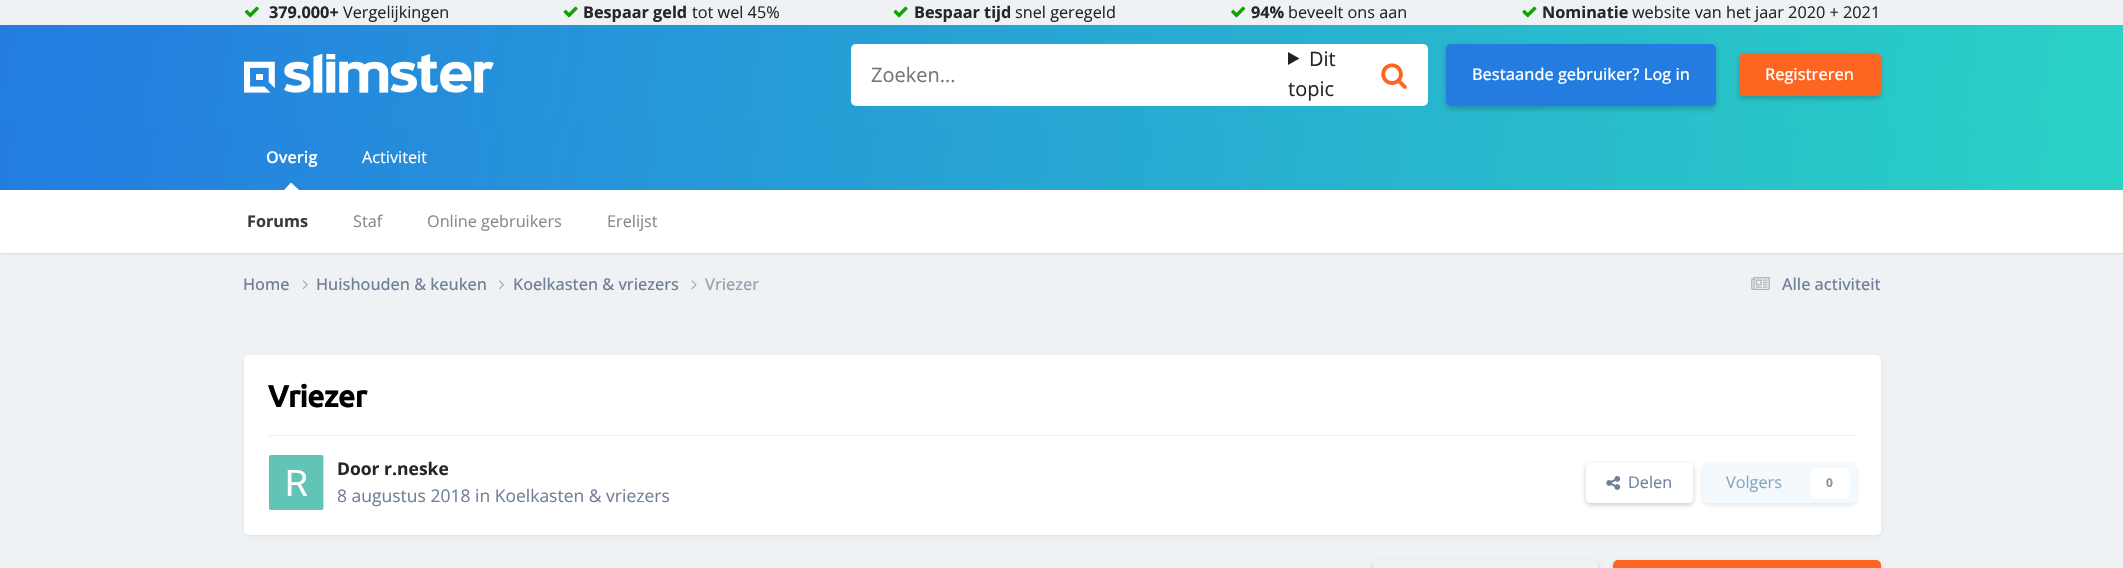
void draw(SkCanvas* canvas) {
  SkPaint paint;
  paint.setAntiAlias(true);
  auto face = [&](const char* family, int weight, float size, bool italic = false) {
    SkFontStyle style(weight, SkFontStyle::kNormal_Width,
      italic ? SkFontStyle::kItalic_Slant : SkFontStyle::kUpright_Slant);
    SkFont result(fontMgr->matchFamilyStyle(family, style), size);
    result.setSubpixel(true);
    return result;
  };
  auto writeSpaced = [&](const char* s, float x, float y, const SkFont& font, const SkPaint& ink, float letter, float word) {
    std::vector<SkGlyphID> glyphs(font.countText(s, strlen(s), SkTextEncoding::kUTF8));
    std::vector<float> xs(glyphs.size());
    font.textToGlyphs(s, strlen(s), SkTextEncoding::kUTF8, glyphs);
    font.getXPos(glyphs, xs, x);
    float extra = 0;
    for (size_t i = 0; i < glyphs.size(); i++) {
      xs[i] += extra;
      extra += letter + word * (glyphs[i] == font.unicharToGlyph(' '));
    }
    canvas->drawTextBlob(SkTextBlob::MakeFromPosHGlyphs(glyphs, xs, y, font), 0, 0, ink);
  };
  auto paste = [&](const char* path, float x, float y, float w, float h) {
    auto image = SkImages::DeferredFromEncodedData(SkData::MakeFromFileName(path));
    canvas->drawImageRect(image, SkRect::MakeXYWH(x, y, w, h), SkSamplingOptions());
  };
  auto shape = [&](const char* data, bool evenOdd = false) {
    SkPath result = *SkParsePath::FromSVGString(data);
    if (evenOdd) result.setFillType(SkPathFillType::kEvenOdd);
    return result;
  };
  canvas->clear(0xffeff2f4);
  paste("img/1.png", 244, 6, 15, 12);
  paste("img/2.png", 563, 6, 15, 12);
  paste("img/2.png", 893, 6, 15, 12);
  paste("img/3.png", 1231, 6, 15, 12);
  paste("img/4.png", 1522, 6, 15, 12);
  {
    const SkColor colors[] = {0xff247ce1, 0xff2ad2c5};
    const float stops[] = {0, 1};
    const SkPoint ends[] = {{23, -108}, {2100, 258}};
    paint.setShader(SkGradientShader::MakeLinear(ends, colors, stops, 2, SkTileMode::kClamp));
    paint.setAlpha(255);
  }
  canvas->drawRect(SkRect::MakeXYWH(0, 25, 2123, 100), paint);
  paste("img/5.png", 244, 54, 250, 39);
  paint.setShader(nullptr);
  paint.setColor(0xffffffff);
  canvas->drawRoundRect(SkRect::MakeXYWH(851, 44, 577, 62), 5, 5, paint);
  paint.setColor(0xff222222);
  canvas->drawPath(shape("M1288 52L1299.5 58.5L1288 65Z"), paint);
  paste("img/6.png", 1381, 63, 26, 26);
  paint.setColor(0x33000000);
  paint.setMaskFilter(SkMaskFilter::MakeBlur(kNormal_SkBlurStyle, 2.5f));
  canvas->drawRoundRect(SkRect::MakeXYWH(1446, 46, 270, 63), 5, 5, paint);
  paint.setMaskFilter(nullptr);
  paint.setColor(0xff247ce1);
  canvas->drawRoundRect(SkRect::MakeXYWH(1446, 44, 270, 62), 5, 5, paint);
  paint.setColor(0x33000000);
  paint.setMaskFilter(SkMaskFilter::MakeBlur(kNormal_SkBlurStyle, 2.5f));
  canvas->drawRoundRect(SkRect::MakeXYWH(1739, 55, 142, 44), 5, 5, paint);
  paint.setMaskFilter(nullptr);
  paint.setColor(0xfffd6621);
  canvas->drawRoundRect(SkRect::MakeXYWH(1739, 53, 142, 43), 5, 5, paint);
  {
    const SkColor colors[] = {0xff247ce1, 0xff2ad2c5};
    const float stops[] = {0, 1};
    const SkPoint ends[] = {{26, -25}, {2097, 340}};
    paint.setShader(SkGradientShader::MakeLinear(ends, colors, stops, 2, SkTileMode::kClamp));
    paint.setAlpha(255);
  }
  canvas->drawRect(SkRect::MakeXYWH(0, 125, 2123, 65), paint);
  paint.setShader(nullptr);
  paint.setColor(0x1a000000);
  paint.setMaskFilter(SkMaskFilter::MakeBlur(kNormal_SkBlurStyle, 1));
  canvas->drawRect(SkRect::MakeXYWH(0, 191, 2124, 63), paint);
  paint.setMaskFilter(nullptr);
  paint.setColor(0xffffffff);
  canvas->drawPath(shape("M299 190H284L291 182.5Z"), paint);
  canvas->drawRect(SkRect::MakeXYWH(0, 190, 2123, 63), paint);
  paste("img/7.png", 302, 280, 6, 10);
  paste("img/8.png", 499, 280, 5, 10);
  paste("img/9.png", 691, 280, 6, 10);
  paste("img/10.png", 1751, 277, 19, 13);
  paint.setColor(0x1a2d3748);
  paint.setMaskFilter(SkMaskFilter::MakeBlur(kNormal_SkBlurStyle, 2.5f));
  canvas->drawRoundRect(SkRect::MakeXYWH(245, 359, 1635, 177), 4, 4, paint);
  paint.setMaskFilter(nullptr);
  paint.setColor(0xffffffff);
  canvas->drawRoundRect(SkRect::MakeXYWH(244, 355, 1637, 180), 5, 5, paint);
  paint.setColor(0xffeeeeee);
  canvas->drawRect(SkRect::MakeXYWH(269, 435, 1587, 1), paint);
  paste("img/11.png", 269, 455, 55, 55);
  canvas->save();
  canvas->clipPath(shape("M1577 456H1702V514H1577ZM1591 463H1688C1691 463 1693 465 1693 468V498C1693 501 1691 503 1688 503H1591C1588 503 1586 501 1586 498V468C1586 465 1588 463 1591 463Z", true), true);
  paint.setColor(0x33000000);
  paint.setMaskFilter(SkMaskFilter::MakeBlur(kNormal_SkBlurStyle, 2.5f));
  canvas->drawRoundRect(SkRect::MakeXYWH(1586, 465, 107, 40), 5, 5, paint);
  paint.setMaskFilter(nullptr);
  canvas->restore();
  paste("img/12.png", 1606, 476, 15, 14);
  paint.setColor(0x337f7f7f);
  paint.setMaskFilter(SkMaskFilter::MakeBlur(kNormal_SkBlurStyle, 2.5f));
  canvas->drawRoundRect(SkRect::MakeXYWH(1703, 465, 153, 40), 5, 5, paint);
  paint.setMaskFilter(nullptr);
  paint.setColor(0xfff4f9fd);
  canvas->drawRoundRect(SkRect::MakeXYWH(1703, 463, 153, 40), 5, 5, paint);
  paint.setColor(0xffffffff);
  canvas->drawRoundRect(SkRect::MakeXYWH(1810, 468, 40, 30), 5, 5, paint);
  canvas->save();
  canvas->clipPath(shape("M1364 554H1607V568H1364ZM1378 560H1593C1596 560 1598 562 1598 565V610C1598 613 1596 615 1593 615H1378C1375 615 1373 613 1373 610V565C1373 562 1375 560 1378 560Z", true), true);
  paint.setColor(0x33000000);
  paint.setMaskFilter(SkMaskFilter::MakeBlur(kNormal_SkBlurStyle, 2.5f));
  canvas->drawRoundRect(SkRect::MakeXYWH(1373, 563, 225, 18), 5, 5, paint);
  paint.setMaskFilter(nullptr);
  canvas->restore();
  paint.setMaskFilter(SkMaskFilter::MakeBlur(kNormal_SkBlurStyle, 2.5f));
  canvas->drawRoundRect(SkRect::MakeXYWH(1613, 563, 268, 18), 5, 5, paint);
  paint.setMaskFilter(nullptr);
  paint.setColor(0xfffd6621);
  canvas->drawRoundRect(SkRect::MakeXYWH(1613, 560, 268, 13), 5, 5, paint);
  auto f0 = face("Open Sans", 700, 16.25f);
  paint.setColor(0xff262626);
  canvas->drawString("379.000+", 269, 18, f0, paint);
  auto f1 = face("Open Sans", 400, 16.25f);
  canvas->drawString("Vergelijkingen", 343, 18, f1, paint);
  canvas->drawString("Bespaar geld", 583, 18, f0, paint);
  canvas->drawString("tot wel 45%", 692, 18, f1, paint);
  canvas->drawString("Bespaar tijd", 914, 18, f0, paint);
  canvas->drawString("snel geregeld", 1015, 18, f1, paint);
  canvas->drawString("94%", 1251, 18, f0, paint);
  canvas->drawString("beveelt ons aan", 1288, 18, f1, paint);
  canvas->drawString("Nominatie", 1542, 18, f0, paint);
  canvas->drawString("website van het jaar 2020 + 2021", 1632, 18, f1, paint);
  auto f2 = face("Open Sans", 400, 20);
  paint.setColor(0xff757575);
  canvas->drawString("Zoeken...", 871, 82, f2, paint);
  paint.setColor(0xff262626);
  canvas->drawString("Dit", 1309, 66, f2, paint);
  canvas->drawString("topic", 1288, 96, f2, paint);
  auto f3 = face("Open Sans", 500, 16.25f);
  paint.setColor(0xffffffff);
  canvas->drawString("Bestaande gebruiker? Log in", 1472, 80, f3, paint);
  canvas->drawString("Registreren", 1765, 80, f3, paint);
  auto f4 = face("Open Sans", 600, 16.25f);
  canvas->drawString("Overig", 266, 163, f4, paint);
  paint.setColor(0xff353c41);
  canvas->drawString("Forums", 247, 227, f0, paint);
  paint.setColor(0xff868a8d);
  {
    const struct { const char* s; float x, y; } items[] = {
      {"Staf", 353, 227},
      {"Online gebruikers", 427, 227},
      {"Erelijst", 607, 227},
    };
    for (auto [s, x, y] : items) {
      canvas->drawString(s, x, y, f1, paint);
    }
  }
  paint.setColor(0xffffffff);
  canvas->drawString("Activiteit", 362, 163, f1, paint);
  paint.setColor(0xff718096);
  {
    const struct { const char* s; float x, y; } items[] = {
      {"Home", 243, 290},
      {"Huishouden & keuken", 316, 290},
      {"Koelkasten & vriezers", 513, 290},
    };
    for (auto [s, x, y] : items) {
      canvas->drawString(s, x, y, f3, paint);
    }
  }
  paint.setColor(0xff97a2b2);
  canvas->drawString("Vriezer", 705, 290, f3, paint);
  paint.setColor(0xff718096);
  canvas->drawString("Alle activiteit", 1782, 290, f3, paint);
  auto f5 = face("Ubuntu", 700, 30);
  paint.setColor(0xff000000);
  writeSpaced("Vriezer", 268, 407, f5, paint, -0.5f, 0);
  auto f6 = face("Open Sans", 700, 17.5f);
  paint.setColor(0xff262626);
  canvas->drawString("Door r.neske", 337, 475, f6, paint);
  auto f7 = face("Open Sans", 400, 17.5f);
  paint.setColor(0xff718096);
  canvas->drawString("8 augustus 2018 in Koelkasten & vriezers", 337, 502, f7, paint);
  canvas->drawString("Delen", 1628, 488, f1, paint);
  paint.setColor(0xff87a6bc);
  canvas->drawString("Volgers", 1726, 488, f1, paint);
  auto f8 = face("Open Sans", 700, 12);
  paint.setColor(0xff939393);
  canvas->drawString("0", 1826, 487, f8, paint);
}
